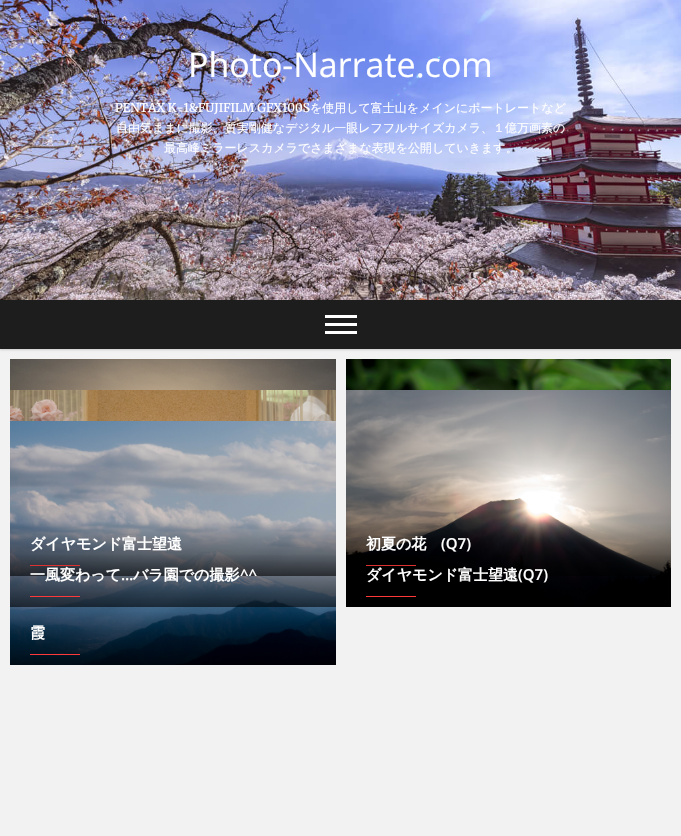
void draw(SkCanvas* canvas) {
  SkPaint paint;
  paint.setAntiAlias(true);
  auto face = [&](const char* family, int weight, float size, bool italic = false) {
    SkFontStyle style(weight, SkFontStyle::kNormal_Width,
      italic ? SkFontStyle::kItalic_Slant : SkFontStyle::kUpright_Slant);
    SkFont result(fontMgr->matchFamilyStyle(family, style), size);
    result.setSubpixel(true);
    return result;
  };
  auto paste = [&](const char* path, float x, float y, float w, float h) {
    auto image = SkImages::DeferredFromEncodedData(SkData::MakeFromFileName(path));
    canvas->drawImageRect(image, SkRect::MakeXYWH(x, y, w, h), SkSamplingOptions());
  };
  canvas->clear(0xffffffff);
  paste("img/1.png", 0, 0, 681, 300);
  paint.setColor(0xfff2f2f2);
  canvas->drawRect(SkRect::MakeXYWH(0, 349, 681, 487), paint);
  paint.setColor(0x26000000);
  paint.setMaskFilter(SkMaskFilter::MakeBlur(kNormal_SkBlurStyle, 1));
  canvas->drawRect(SkRect::MakeXYWH(0, 301, 681, 49), paint);
  paint.setMaskFilter(nullptr);
  {
    const struct { float x, y, w, h; SkColor color; } items[] = {
      {0, 300, 681, 49, 0xff1d1d1d},
      {325, 315, 32, 3, 0xffffffff},
      {325, 323, 32, 3, 0xffffffff},
      {325, 331, 32, 3, 0xffffffff},
    };
    for (auto [x, y, w, h, color] : items) {
      paint.setColor(color);
      canvas->drawRect(SkRect::MakeXYWH(x, y, w, h), paint);
    }
  }
  paste("img/2.png", 10, 359, 326, 31);
  paste("img/6.png", 10, 421, 326, 244);
  paint.setColor(0xffff3838);
  canvas->drawRect(SkRect::MakeXYWH(30, 565, 50, 1), paint);
  paste("img/3.png", 346, 359, 325, 31);
  paste("img/5.png", 346, 390, 325, 217);
  canvas->drawRect(SkRect::MakeXYWH(366, 565, 50, 1), paint);
  paste("img/4.png", 10, 390, 326, 31);
  {
    const SkColor colors[] = {0x99000000, 0x00000000};
    const float stops[] = {0, 1};
    const SkPoint ends[] = {{173, 607}, {173, 553}};
    paint.setShader(SkGradientShader::MakeLinear(ends, colors, stops, 2, SkTileMode::kClamp));
    paint.setAlpha(255);
  }
  canvas->drawRect(SkRect::MakeXYWH(10, 555, 326, 52), paint);
  paint.setShader(nullptr);
  paint.setColor(0xffff3838);
  canvas->drawRect(SkRect::MakeXYWH(30, 596, 50, 1), paint);
  {
    const SkColor colors[] = {0x99000000, 0x00000000};
    const float stops[] = {0, 1};
    const SkPoint ends[] = {{509, 607}, {509, 553}};
    paint.setShader(SkGradientShader::MakeLinear(ends, colors, stops, 2, SkTileMode::kClamp));
    paint.setAlpha(255);
  }
  canvas->drawRect(SkRect::MakeXYWH(366, 555, 305, 46), paint);
  paint.setShader(nullptr);
  paint.setColor(0xffff3838);
  canvas->drawRect(SkRect::MakeXYWH(366, 596, 50, 1), paint);
  canvas->drawRect(SkRect::MakeXYWH(30, 654, 50, 1), paint);
  auto f0 = face("Open Sans", 400, 34);
  paint.setColor(0xffffffff);
  canvas->drawString("Photo-Narrate.com", 188, 77, f0, paint);
  auto f1 = face("Merriweather", 300, 12);
  canvas->drawString("PENTAX K-1&FUJIFILM GFX100S", 115, 112, f1, paint);
  auto f2 = face("WenQuanYi Zen Hei", 500, 12);
  {
    const struct { const char* s; float x, y; } items[] = {
      {"を使用して富士山をメインにポートレートなど", 310, 112},
      {"自由気ままに撮影。質実剛健なデジタル一眼レフフルサイズカメラ、１億万画素の", 116, 132},
      {"最高峰ミラーレスカメラでさまざまな表現を公開していきます。", 164, 152},
    };
    for (auto [s, x, y] : items) {
      canvas->drawString(s, x, y, f2, paint);
    }
  }
  auto f3 = face("WenQuanYi Zen Hei", 700, 15);
  canvas->drawString("ダイヤモンド富士望遠", 30, 549, f3, paint);
  canvas->drawString("初夏の花", 366, 549, f3, paint);
  auto f4 = face("Open Sans", 600, 15);
  canvas->drawString("(Q7)", 441, 549, f4, paint);
  canvas->drawString("一風変わって", 30, 580, f3, paint);
  canvas->drawString("バラ園での撮影", 133, 580, f3, paint);
  canvas->drawString("^^", 240, 580, f4, paint);
  canvas->drawString("…", 121, 580, f4, paint);
  canvas->drawString("ダイヤモンド富士望遠", 366, 580, f3, paint);
  canvas->drawString("(Q7)", 518, 580, f4, paint);
  canvas->drawString("霞", 30, 638, f3, paint);
}
